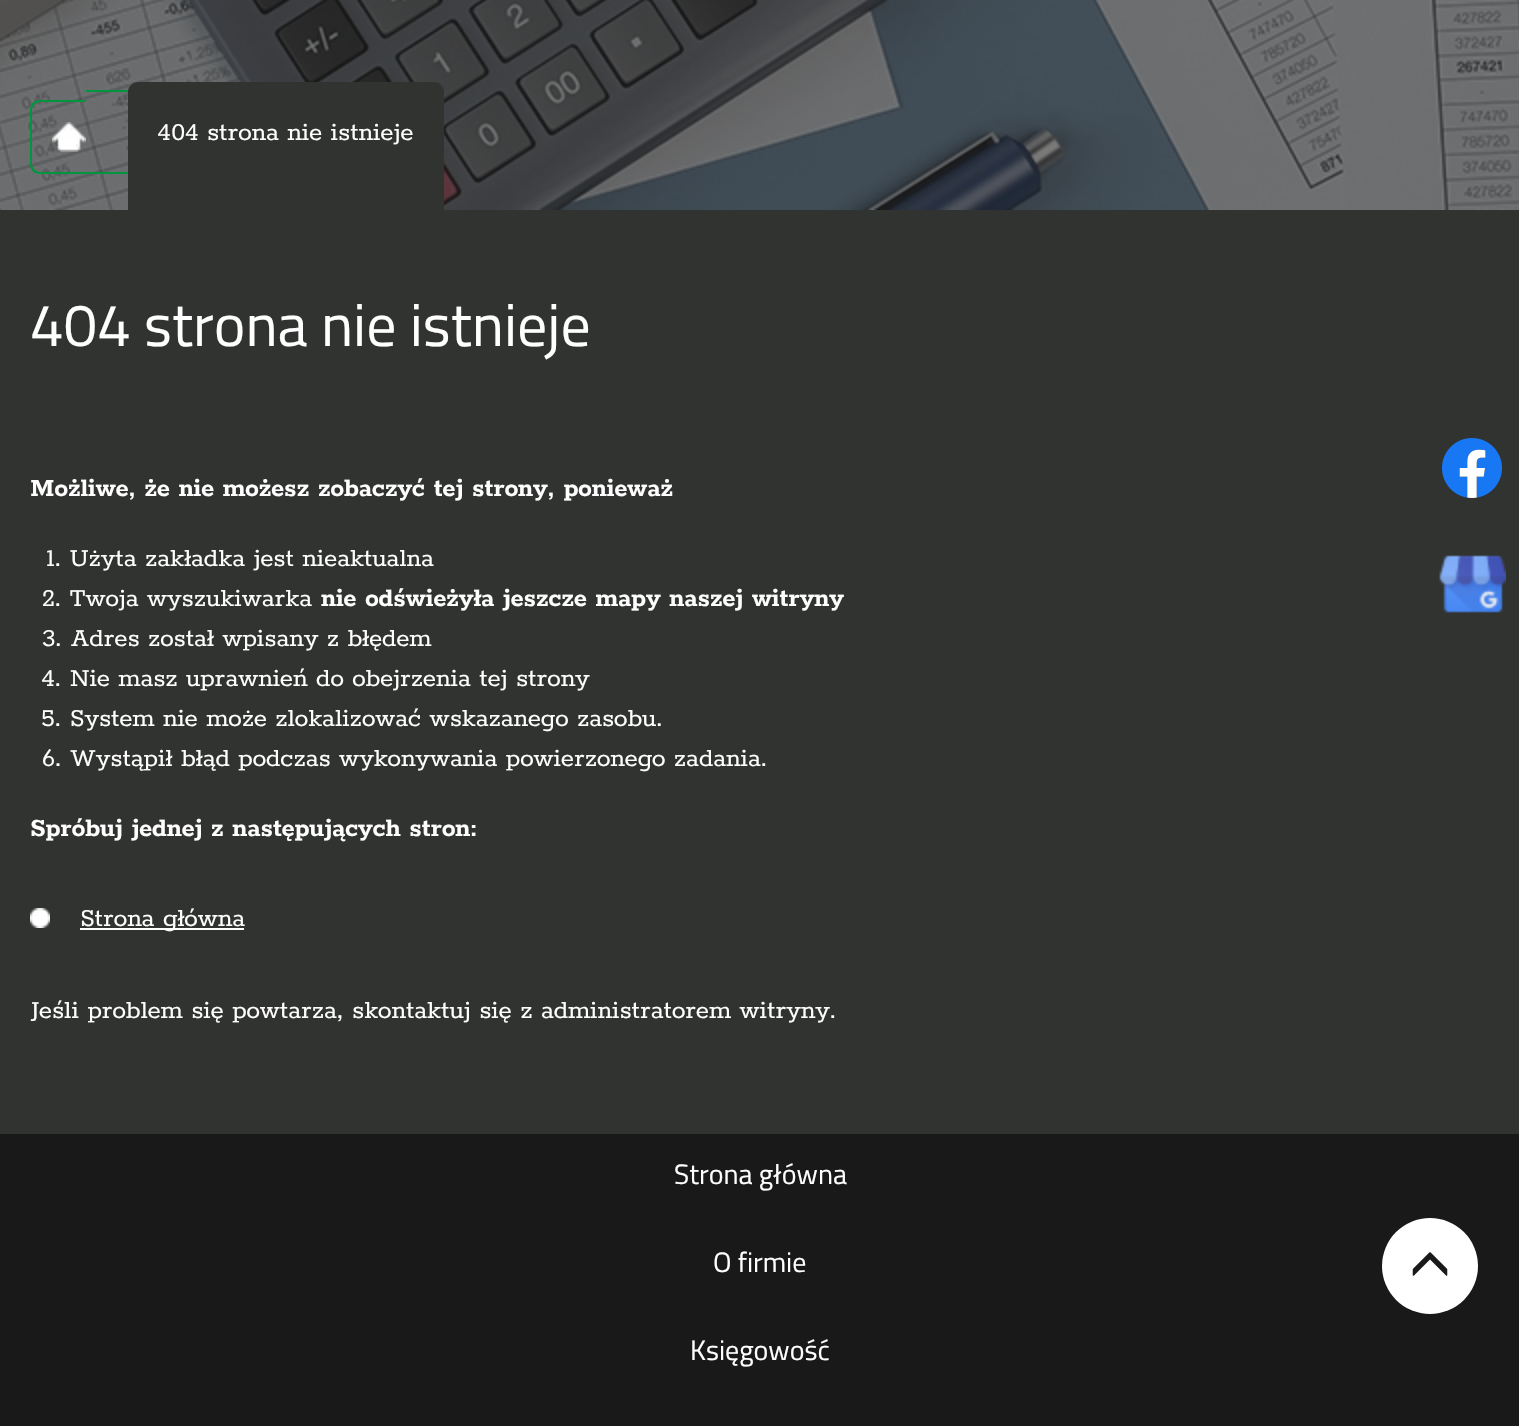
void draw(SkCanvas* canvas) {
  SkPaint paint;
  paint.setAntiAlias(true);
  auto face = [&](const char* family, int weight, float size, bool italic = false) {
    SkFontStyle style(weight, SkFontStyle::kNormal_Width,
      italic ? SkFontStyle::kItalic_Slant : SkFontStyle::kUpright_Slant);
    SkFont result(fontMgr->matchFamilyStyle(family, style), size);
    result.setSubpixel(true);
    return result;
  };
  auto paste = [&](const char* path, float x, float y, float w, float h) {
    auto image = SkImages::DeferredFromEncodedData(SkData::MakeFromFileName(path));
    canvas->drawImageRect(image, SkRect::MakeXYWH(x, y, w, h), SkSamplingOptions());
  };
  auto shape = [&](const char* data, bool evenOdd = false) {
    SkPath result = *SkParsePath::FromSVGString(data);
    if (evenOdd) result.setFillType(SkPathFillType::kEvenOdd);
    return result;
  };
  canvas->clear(0xff313330);
  paste("img/1.png", 0, 0, 1519, 210);
  paint.setColor(0xff00963f);
  canvas->drawPath(shape("M40 100H86V174H40C34 174 30 170 30 164V110C30 104 34 100 40 100ZM40 102H86V172H40C36 172 32 168 32 164V110C32 106 36 102 40 102Z", true), paint);
  canvas->drawPath(shape("M86 90H154C160 90 164 94 164 100V164C164 170 160 174 154 174H86ZM86 92H154C158 92 162 96 162 100V164C162 168 158 172 154 172H86Z", true), paint);
  paste("img/2.png", 52, 122, 34, 30);
  paint.setColor(0xff313330);
  canvas->drawPath(shape("M138 82H434C439.5 82 444 86.5 444 92V212H128V92C128 86.5 132.5 82 138 82Z"), paint);
  paste("img/3.png", 30, 908, 20, 20);
  paint.setColor(0xffffffff);
  canvas->drawRect(SkRect::MakeXYWH(80, 928, 164, 2), paint);
  paste("img/4.png", 1442, 438, 60, 60);
  paste("img/5.png", 1439, 555, 67, 58);
  paint.setColor(0xff1a1919);
  canvas->drawRect(SkRect::MakeXYWH(0, 1134, 1519, 292), paint);
  paint.setColor(0xffffffff);
  canvas->drawCircle(1430, 1266, 48, paint);
  paste("img/6.png", 1412, 1252, 36, 24);
  auto f0 = face("Rokkitt", 400, 28);
  canvas->drawString("404 strona nie istnieje", 158, 140, f0, paint);
  auto f1 = face("Cairo", 400, 60);
  canvas->drawString("404 strona nie istnieje", 30, 346, f1, paint);
  auto f2 = face("Rokkitt", 700, 28);
  canvas->drawString("Możliwe, że nie możesz zobaczyć tej strony, ponieważ", 30, 496, f2, paint);
  canvas->drawString("1. Użyta zakładka jest nieaktualna", 46, 566, f0, paint);
  canvas->drawString("2. Twoja wyszukiwarka", 42, 606, f0, paint);
  canvas->drawString("nie odświeżyła jeszcze mapy naszej witryny", 321, 606, f2, paint);
  {
    const struct { const char* s; float x, y; } items[] = {
      {"3. Adres został wpisany z błędem", 42, 646},
      {"4. Nie masz uprawnień do obejrzenia tej strony", 42, 686},
      {"5. System nie może zlokalizować wskazanego zasobu.", 41, 726},
      {"6. Wystąpił błąd podczas wykonywania powierzonego zadania.", 42, 766},
    };
    for (auto [s, x, y] : items) {
      canvas->drawString(s, x, y, f0, paint);
    }
  }
  canvas->drawString("Spróbuj jednej z następujących stron:", 30, 836, f2, paint);
  canvas->drawString("Strona główna", 80, 926, f0, paint);
  canvas->drawString("Jeśli problem się powtarza, skontaktuj się z administratorem witryny.", 30, 1018, f0, paint);
  auto f3 = face("Cairo", 400, 28);
  {
    const struct { const char* s; float x, y; } items[] = {
      {"Strona główna", 674, 1184},
      {"O firmie", 713, 1272},
      {"Księgowość", 690, 1360},
    };
    for (auto [s, x, y] : items) {
      canvas->drawString(s, x, y, f3, paint);
    }
  }
}
